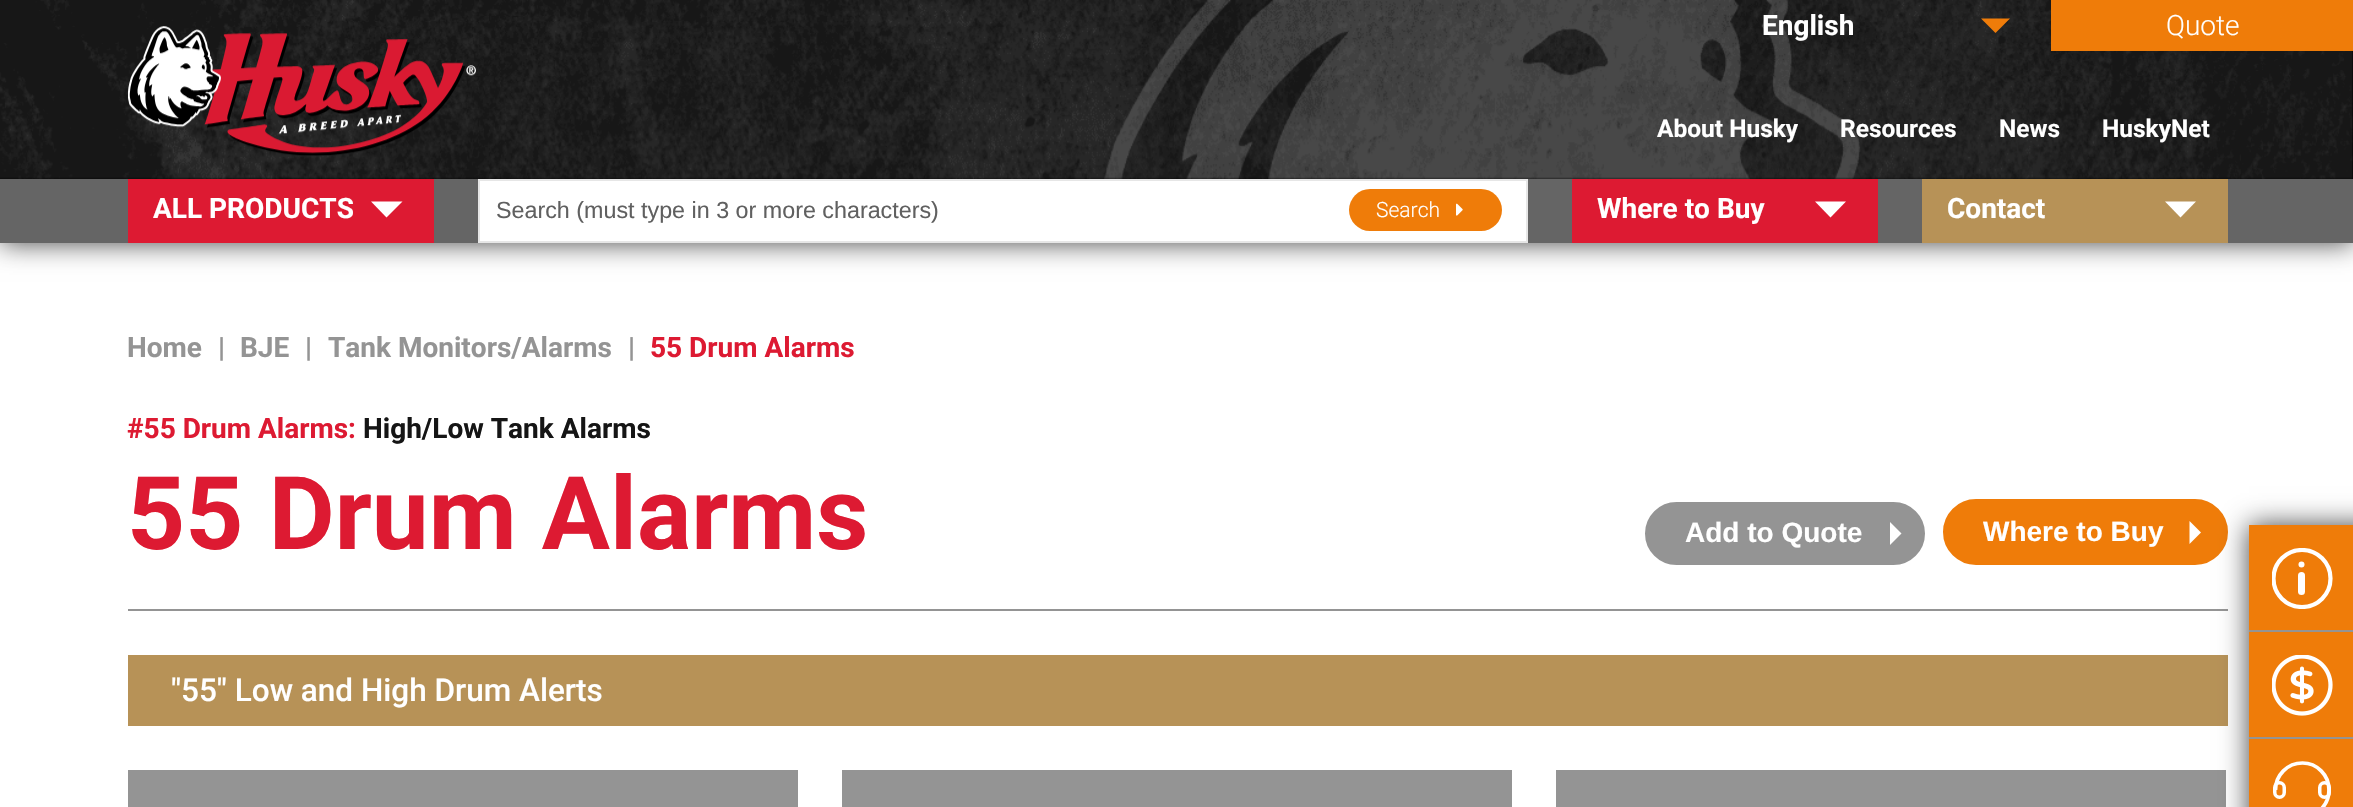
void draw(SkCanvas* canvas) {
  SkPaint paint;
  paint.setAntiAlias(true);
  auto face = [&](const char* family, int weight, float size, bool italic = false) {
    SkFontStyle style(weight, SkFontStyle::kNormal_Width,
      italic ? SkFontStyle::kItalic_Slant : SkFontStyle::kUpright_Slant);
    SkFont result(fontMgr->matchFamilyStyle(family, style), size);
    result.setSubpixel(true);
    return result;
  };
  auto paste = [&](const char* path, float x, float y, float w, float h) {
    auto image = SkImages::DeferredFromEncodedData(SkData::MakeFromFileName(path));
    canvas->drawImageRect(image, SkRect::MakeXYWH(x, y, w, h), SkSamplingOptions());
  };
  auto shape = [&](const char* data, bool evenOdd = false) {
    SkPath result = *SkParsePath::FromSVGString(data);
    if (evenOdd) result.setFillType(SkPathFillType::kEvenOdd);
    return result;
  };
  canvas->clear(0xffffffff);
  paint.setColor(0xff444444);
  paint.setMaskFilter(SkMaskFilter::MakeBlur(kNormal_SkBlurStyle, 13));
  canvas->drawRect(SkRect::MakeXYWH(0, 0, 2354, 243), paint);
  paint.setMaskFilter(nullptr);
  paint.setColor(0xff000000);
  canvas->drawRect(SkRect::MakeXYWH(0, 51, 2353, 128), paint);
  paste("img/2.png", 0, 0, 2353, 179);
  paint.setColor(0xffef7c09);
  canvas->drawPath(shape("M1995.5 33L1981 18.5H2010Z"), paint);
  canvas->drawRect(SkRect::MakeXYWH(2051, 0, 302, 51), paint);
  paste("img/1.png", 128, 26, 348, 130);
  paint.setColor(0xff656565);
  canvas->drawRect(SkRect::MakeXYWH(0, 179, 2353, 64), paint);
  paint.setColor(0xffdd1a32);
  canvas->drawRect(SkRect::MakeXYWH(128, 179, 306, 64), paint);
  paint.setColor(0xffffffff);
  canvas->drawPath(shape("M386.5 217.5L371 201.5H402.5Z"), paint);
  canvas->drawRect(SkRect::MakeXYWH(479, 180, 1048, 62), paint);
  paint.setStroke(true);
  paint.setStrokeWidth(2);
  paint.setColor(0xffe6e6e6);
  canvas->drawRect(SkRect::MakeXYWH(479, 180, 1048, 62), paint);
  paint.setStroke(false);
  paint.setColor(0xffef7c09);
  canvas->drawRoundRect(SkRect::MakeXYWH(1349, 189, 153, 42), 21, 21, paint);
  paste("img/3.png", 1456, 203, 7, 13);
  paint.setColor(0xffdd1a32);
  canvas->drawRect(SkRect::MakeXYWH(1572, 179, 306, 64), paint);
  paint.setColor(0xffffffff);
  canvas->drawPath(shape("M1830.5 217.5L1815 201.5H1846Z"), paint);
  paint.setColor(0xffb79257);
  canvas->drawRect(SkRect::MakeXYWH(1922, 179, 306, 64), paint);
  paint.setColor(0xffffffff);
  canvas->drawPath(shape("M2180.5 217.5L2165 201.5H2196Z"), paint);
  paint.setColor(0xff949494);
  canvas->drawRect(SkRect::MakeXYWH(128, 609, 2100, 2), paint);
  canvas->drawRoundRect(SkRect::MakeXYWH(1646, 503, 278, 61), 30.5f, 30.5f, paint);
  paint.setStroke(true);
  canvas->drawRoundRect(SkRect::MakeXYWH(1646, 503, 278, 61), 30.5f, 30.5f, paint);
  paint.setStroke(false);
  paint.setColor(0xffffffff);
  canvas->drawPath(shape("M1901.5 533.5L1890 545V522Z"), paint);
  paint.setColor(0xffef7c09);
  canvas->drawRoundRect(SkRect::MakeXYWH(1944, 500, 283, 64), 32, 32, paint);
  paint.setStroke(true);
  canvas->drawRoundRect(SkRect::MakeXYWH(1944, 500, 283, 64), 32, 32, paint);
  paint.setStroke(false);
  paint.setColor(0xffffffff);
  canvas->drawPath(shape("M2201 532.5L2189.5 544V521Z"), paint);
  {
    const struct { float x, y, w, h; SkColor color; } items[] = {
      {128, 655, 2100, 71, 0xffb79257},
      {128, 770, 670, 37, 0xff949494},
      {842, 770, 670, 37, 0xff949494},
      {1556, 770, 670, 37, 0xff949494},
    };
    for (auto [x, y, w, h, color] : items) {
      paint.setColor(color);
      canvas->drawRect(SkRect::MakeXYWH(x, y, w, h), paint);
    }
  }
  paint.setColor(0xff444444);
  paint.setMaskFilter(SkMaskFilter::MakeBlur(kNormal_SkBlurStyle, 13));
  canvas->drawRect(SkRect::MakeXYWH(2249, 525, 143, 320), paint);
  paint.setMaskFilter(nullptr);
  paint.setColor(0xffef7c09);
  canvas->drawRect(SkRect::MakeXYWH(2249, 525, 104, 105), paint);
  paint.setColor(0xff949494);
  canvas->drawRect(SkRect::MakeXYWH(2249, 630, 104, 2), paint);
  paint.setColor(0xffffffff);
  canvas->drawRoundRect(SkRect::MakeXYWH(2298, 572, 7, 23), 3.5f, 3.5f, paint);
  canvas->drawCircle(2301.5f, 564.5f, 3, paint);
  canvas->save();
  canvas->clipRect(SkRect::MakeXYWH(2272, 548, 61, 61));
  paint.setStroke(true);
  paint.setStrokeWidth(4.2f);
  canvas->drawCircle(2302, 578.5f, 28.5f, paint);
  canvas->restore();
  paint.setStroke(false);
  paint.setColor(0xffef7c09);
  canvas->drawRect(SkRect::MakeXYWH(2249, 632, 104, 105), paint);
  paint.setColor(0xff949494);
  canvas->drawRect(SkRect::MakeXYWH(2249, 737, 104, 2), paint);
  paste("img/4.png", 2272, 655, 61, 61);
  paint.setColor(0xffef7c09);
  canvas->drawRect(SkRect::MakeXYWH(2249, 739, 104, 68), paint);
  paint.setStroke(true);
  paint.setStrokeWidth(3.5f);
  paint.setColor(0xffffffff);
  canvas->drawRoundRect(SkRect::MakeXYWH(2274.75f, 782.75f, 9.5f, 14.5f), 4.75f, 4.75f, paint);
  canvas->drawRoundRect(SkRect::MakeXYWH(2319.75f, 782.75f, 9.5f, 14.5f), 4.75f, 4.75f, paint);
  paint.setStrokeWidth(3.7f);
  canvas->drawPath(shape("M2275.5 790C2275.5 775 2287.5 763 2302.5 763C2317 763 2329 775 2329 790C2329 805 2317 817 2302.5 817"), paint);
  auto f0 = face("Roboto", 700, 28);
  paint.setStroke(false);
  canvas->drawString("English", 1762, 35, f0, paint);
  auto f1 = face("Roboto", 300, 28);
  canvas->drawString("Quote", 2166, 35, f1, paint);
  auto f2 = face("Roboto", 700, 24.5f);
  {
    const struct { const char* s; float x, y; } items[] = {
      {"About Husky", 1657, 137},
      {"Resources", 1840, 137},
      {"News", 1999, 137},
      {"HuskyNet", 2102, 137},
    };
    for (auto [s, x, y] : items) {
      canvas->drawString(s, x, y, f2, paint);
    }
  }
  canvas->drawString("ALL PRODUCTS", 153, 218, f0, paint);
  auto f3 = face("Liberation Sans", 400, 23.3f);
  paint.setColor(0xff606060);
  canvas->drawString("Search (must type in 3 or more characters)", 496, 218, f3, paint);
  auto f4 = face("Roboto", 300, 21);
  paint.setColor(0xffffffff);
  canvas->drawString("Search", 1376, 217, f4, paint);
  canvas->drawString("Where to Buy", 1597, 218, f0, paint);
  canvas->drawString("Contact", 1947, 218, f0, paint);
  paint.setColor(0xff949494);
  {
    const struct { const char* s; float x, y; } items[] = {
      {"Home", 127, 357},
      {"|", 218, 357},
      {"BJE", 240, 357},
      {"|", 305, 357},
      {"Tank Monitors/Alarms", 328, 357},
      {"|", 628, 357},
    };
    for (auto [s, x, y] : items) {
      canvas->drawString(s, x, y, f0, paint);
    }
  }
  paint.setColor(0xffdd1a32);
  canvas->drawString("55 Drum Alarms", 650, 357, f0, paint);
  canvas->drawString("#55 Drum Alarms:", 127, 438, f0, paint);
  paint.setColor(0xff151515);
  canvas->drawString("High/Low Tank Alarms", 363, 438, f0, paint);
  auto f5 = face("Roboto", 700, 101.5f);
  paint.setColor(0xffdd1a32);
  canvas->drawString("55 Drum Alarms", 127, 549, f5, paint);
  auto f6 = face("Liberation Sans", 700, 28);
  paint.setColor(0xffffffff);
  canvas->drawString("Add to Quote", 1685, 542, f6, paint);
  canvas->drawString("Where to Buy", 1983, 541, f6, paint);
  auto f7 = face("Roboto", 500, 31.5f);
  canvas->drawString("\"55\" Low and High Drum Alerts", 171, 701, f7, paint);
}
